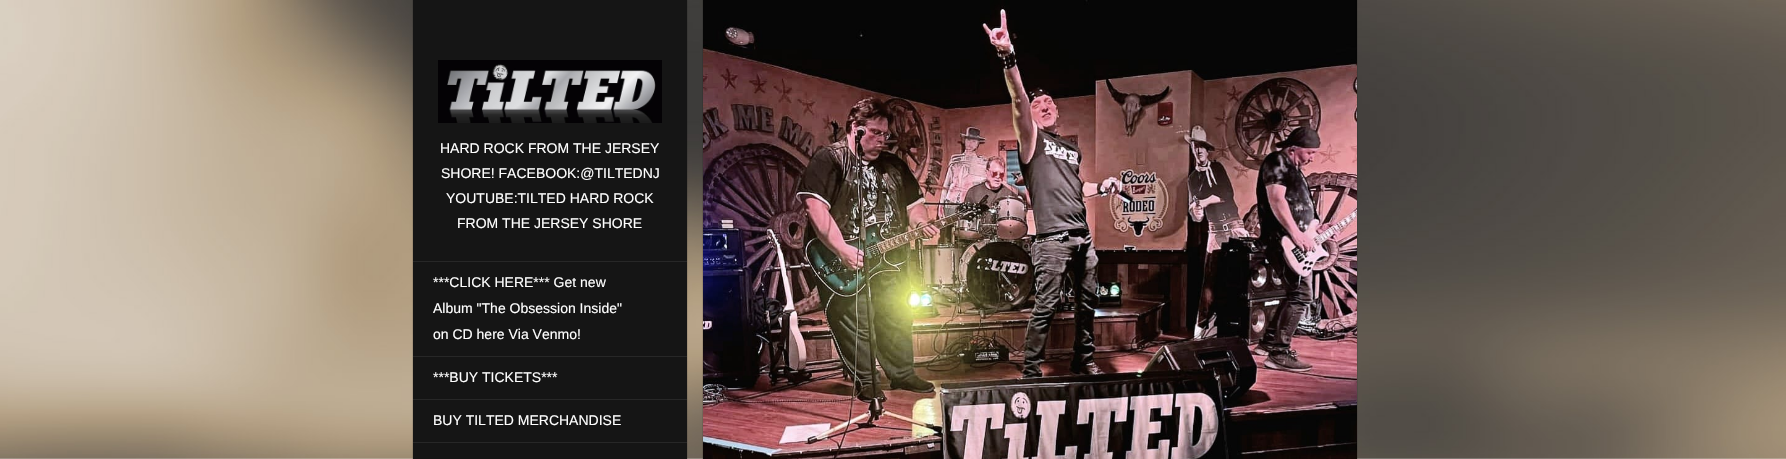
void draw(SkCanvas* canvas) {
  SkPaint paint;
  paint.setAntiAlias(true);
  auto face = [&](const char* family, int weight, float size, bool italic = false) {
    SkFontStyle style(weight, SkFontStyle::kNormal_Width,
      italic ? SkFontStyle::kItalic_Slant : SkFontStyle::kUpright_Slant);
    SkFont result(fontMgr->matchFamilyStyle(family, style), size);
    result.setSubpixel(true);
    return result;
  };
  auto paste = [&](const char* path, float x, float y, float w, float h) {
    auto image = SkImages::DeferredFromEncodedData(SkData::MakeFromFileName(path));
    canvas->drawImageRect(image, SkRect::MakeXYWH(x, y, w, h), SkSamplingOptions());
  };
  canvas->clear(0xffffffff);
  paste("img/1.png", 0, 0, 1786, 459);
  paint.setColor(0xff151515);
  canvas->drawRect(SkRect::MakeXYWH(413, 0, 274, 459), paint);
  paint.setStroke(true);
  paint.setStrokeWidth(1);
  paint.setColor(0x1a000000);
  canvas->drawRect(SkRect::MakeXYWH(412.5f, -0.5f, 275, 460), paint);
  paste("img/2.png", 438, 60, 224, 63);
  paint.setStroke(false);
  {
    const struct { float x, y, w, h; SkColor color; } items[] = {
      {413, 261, 274, 1, 0xff272727},
      {413, 356, 274, 1, 0xff272727},
      {413, 399, 274, 1, 0xff272727},
      {413, 442, 274, 1, 0xff272727},
    };
    for (auto [x, y, w, h, color] : items) {
      paint.setColor(color);
      canvas->drawRect(SkRect::MakeXYWH(x, y, w, h), paint);
    }
  }
  paint.setStroke(true);
  paint.setColor(0x1a000000);
  canvas->drawRect(SkRect::MakeXYWH(702.5f, -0.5f, 655, 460), paint);
  paste("img/3.png", 703, 0, 654, 459);
  auto f0 = face("Liberation Sans", 400, 14);
  paint.setStroke(false);
  paint.setColor(0xffffffff);
  {
    const struct { const char* s; float x, y; } items[] = {
      {"HARD ROCK FROM THE JERSEY", 440, 153},
      {"SHORE! FACEBOOK:@TILTEDNJ", 441, 178},
      {"YOUTUBE:TILTED HARD ROCK", 446, 203},
      {"FROM THE JERSEY SHORE", 457, 228},
      {"***CLICK HERE*** Get new", 433, 287},
      {"Album \"The Obsession Inside\"", 433, 313},
      {"on CD here Via Venmo!", 433, 339},
      {"***BUY TICKETS***", 433, 382},
      {"BUY TILTED MERCHANDISE", 433, 425},
    };
    for (auto [s, x, y] : items) {
      canvas->drawString(s, x, y, f0, paint);
    }
  }
}
